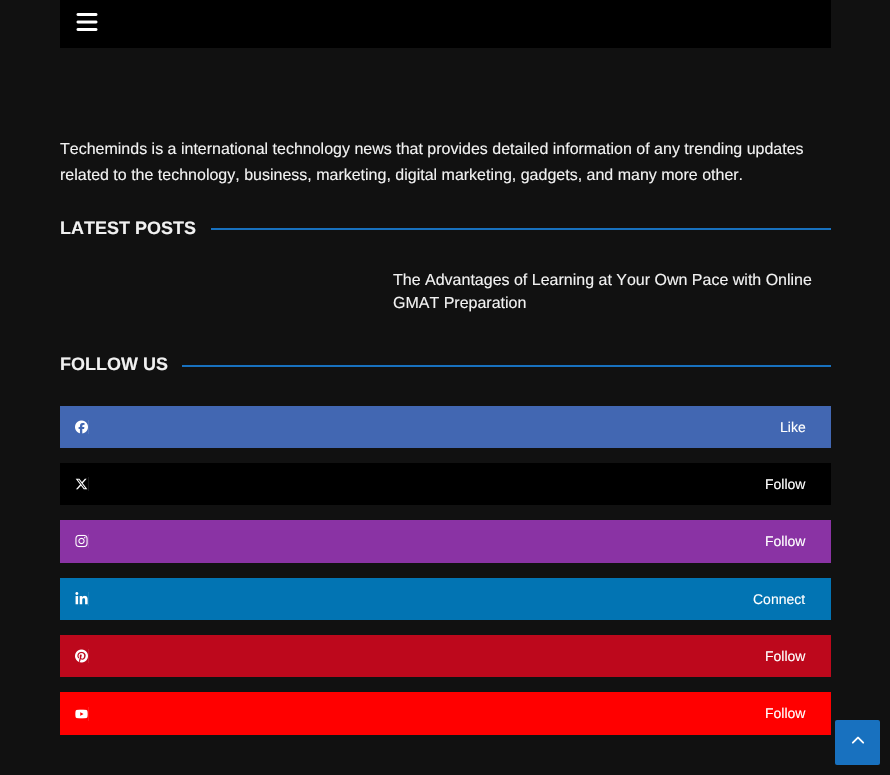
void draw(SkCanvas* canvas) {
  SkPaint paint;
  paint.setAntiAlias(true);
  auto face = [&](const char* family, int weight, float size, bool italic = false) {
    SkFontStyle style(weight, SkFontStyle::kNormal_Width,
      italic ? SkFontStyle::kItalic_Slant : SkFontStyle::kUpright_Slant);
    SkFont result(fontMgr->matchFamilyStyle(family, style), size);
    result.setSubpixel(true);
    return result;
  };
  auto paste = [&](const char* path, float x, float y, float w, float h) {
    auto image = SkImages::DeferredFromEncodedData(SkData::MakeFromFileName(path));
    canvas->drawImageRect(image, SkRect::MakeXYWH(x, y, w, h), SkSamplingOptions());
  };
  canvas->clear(0xff111111);
  paint.setColor(0xff000000);
  canvas->drawRect(SkRect::MakeXYWH(60, 0, 771, 48), paint);
  paste("img/1.png", 76, 13, 22, 18);
  {
    const struct { float x, y, w, h; SkColor color; } items[] = {
      {211, 228, 620, 2, 0xff1871bf},
      {182, 365, 649, 2, 0xff1871bf},
      {60, 406, 771, 42, 0xff4267b2},
      {88, 420, 1, 14, 0xff5576ba},
    };
    for (auto [x, y, w, h, color] : items) {
      paint.setColor(color);
      canvas->drawRect(SkRect::MakeXYWH(x, y, w, h), paint);
    }
  }
  paste("img/2.png", 75, 420, 13, 14);
  paint.setColor(0xff000000);
  canvas->drawRect(SkRect::MakeXYWH(60, 463, 771, 42), paint);
  paint.setColor(0xff1a1a1a);
  canvas->drawRect(SkRect::MakeXYWH(88, 477, 1, 14), paint);
  paste("img/3.png", 75, 478, 13, 12);
  paint.setColor(0xff8a33a4);
  canvas->drawRect(SkRect::MakeXYWH(60, 520, 771, 43), paint);
  paint.setColor(0xff9647ad);
  canvas->drawRect(SkRect::MakeXYWH(88, 534, 1, 14), paint);
  paste("img/4.png", 75, 534, 13, 14);
  paint.setColor(0xff0274b3);
  canvas->drawRect(SkRect::MakeXYWH(60, 578, 771, 42), paint);
  paint.setColor(0xff1b82bb);
  canvas->drawRect(SkRect::MakeXYWH(88, 592, 1, 14), paint);
  paste("img/5.png", 75, 592, 13, 13);
  paint.setColor(0xffbd081c);
  canvas->drawRect(SkRect::MakeXYWH(60, 635, 771, 42), paint);
  paint.setColor(0xffc42133);
  canvas->drawRect(SkRect::MakeXYWH(88, 649, 1, 14), paint);
  paste("img/6.png", 75, 649, 13, 14);
  paint.setColor(0xffff0000);
  canvas->drawRect(SkRect::MakeXYWH(60, 692, 771, 43), paint);
  paint.setColor(0xffff1a1a);
  canvas->drawRect(SkRect::MakeXYWH(88, 707, 1, 14), paint);
  paste("img/7.png", 75, 709, 13, 10);
  paint.setColor(0xff1871bf);
  canvas->drawRoundRect(SkRect::MakeXYWH(835, 720, 45, 45), 2, 2, paint);
  paste("img/8.png", 851, 736, 14, 8);
  auto f0 = face("Liberation Sans", 400, 16);
  paint.setColor(0xfff1f1f1);
  canvas->drawString("Techeminds is a international technology news that provides detailed information of any trending updates", 60, 154, f0, paint);
  canvas->drawString("related to the technology, business, marketing, digital marketing, gadgets, and many more other.", 60, 180, f0, paint);
  auto f1 = face("Liberation Sans", 700, 18);
  canvas->drawString("LATEST POSTS", 60, 234, f1, paint);
  canvas->drawString("The Advantages of Learning at Your Own Pace with Online", 393, 285, f0, paint);
  canvas->drawString("GMAT Preparation", 393, 308, f0, paint);
  canvas->drawString("FOLLOW US", 60, 370, f1, paint);
  auto f2 = face("Liberation Sans", 400, 14);
  paint.setColor(0xffffffff);
  {
    const struct { const char* s; float x, y; } items[] = {
      {"Like", 780, 432},
      {"Follow", 765, 489},
      {"Follow", 765, 546},
      {"Connect", 753, 604},
      {"Follow", 765, 661},
      {"Follow", 765, 718},
    };
    for (auto [s, x, y] : items) {
      canvas->drawString(s, x, y, f2, paint);
    }
  }
}
